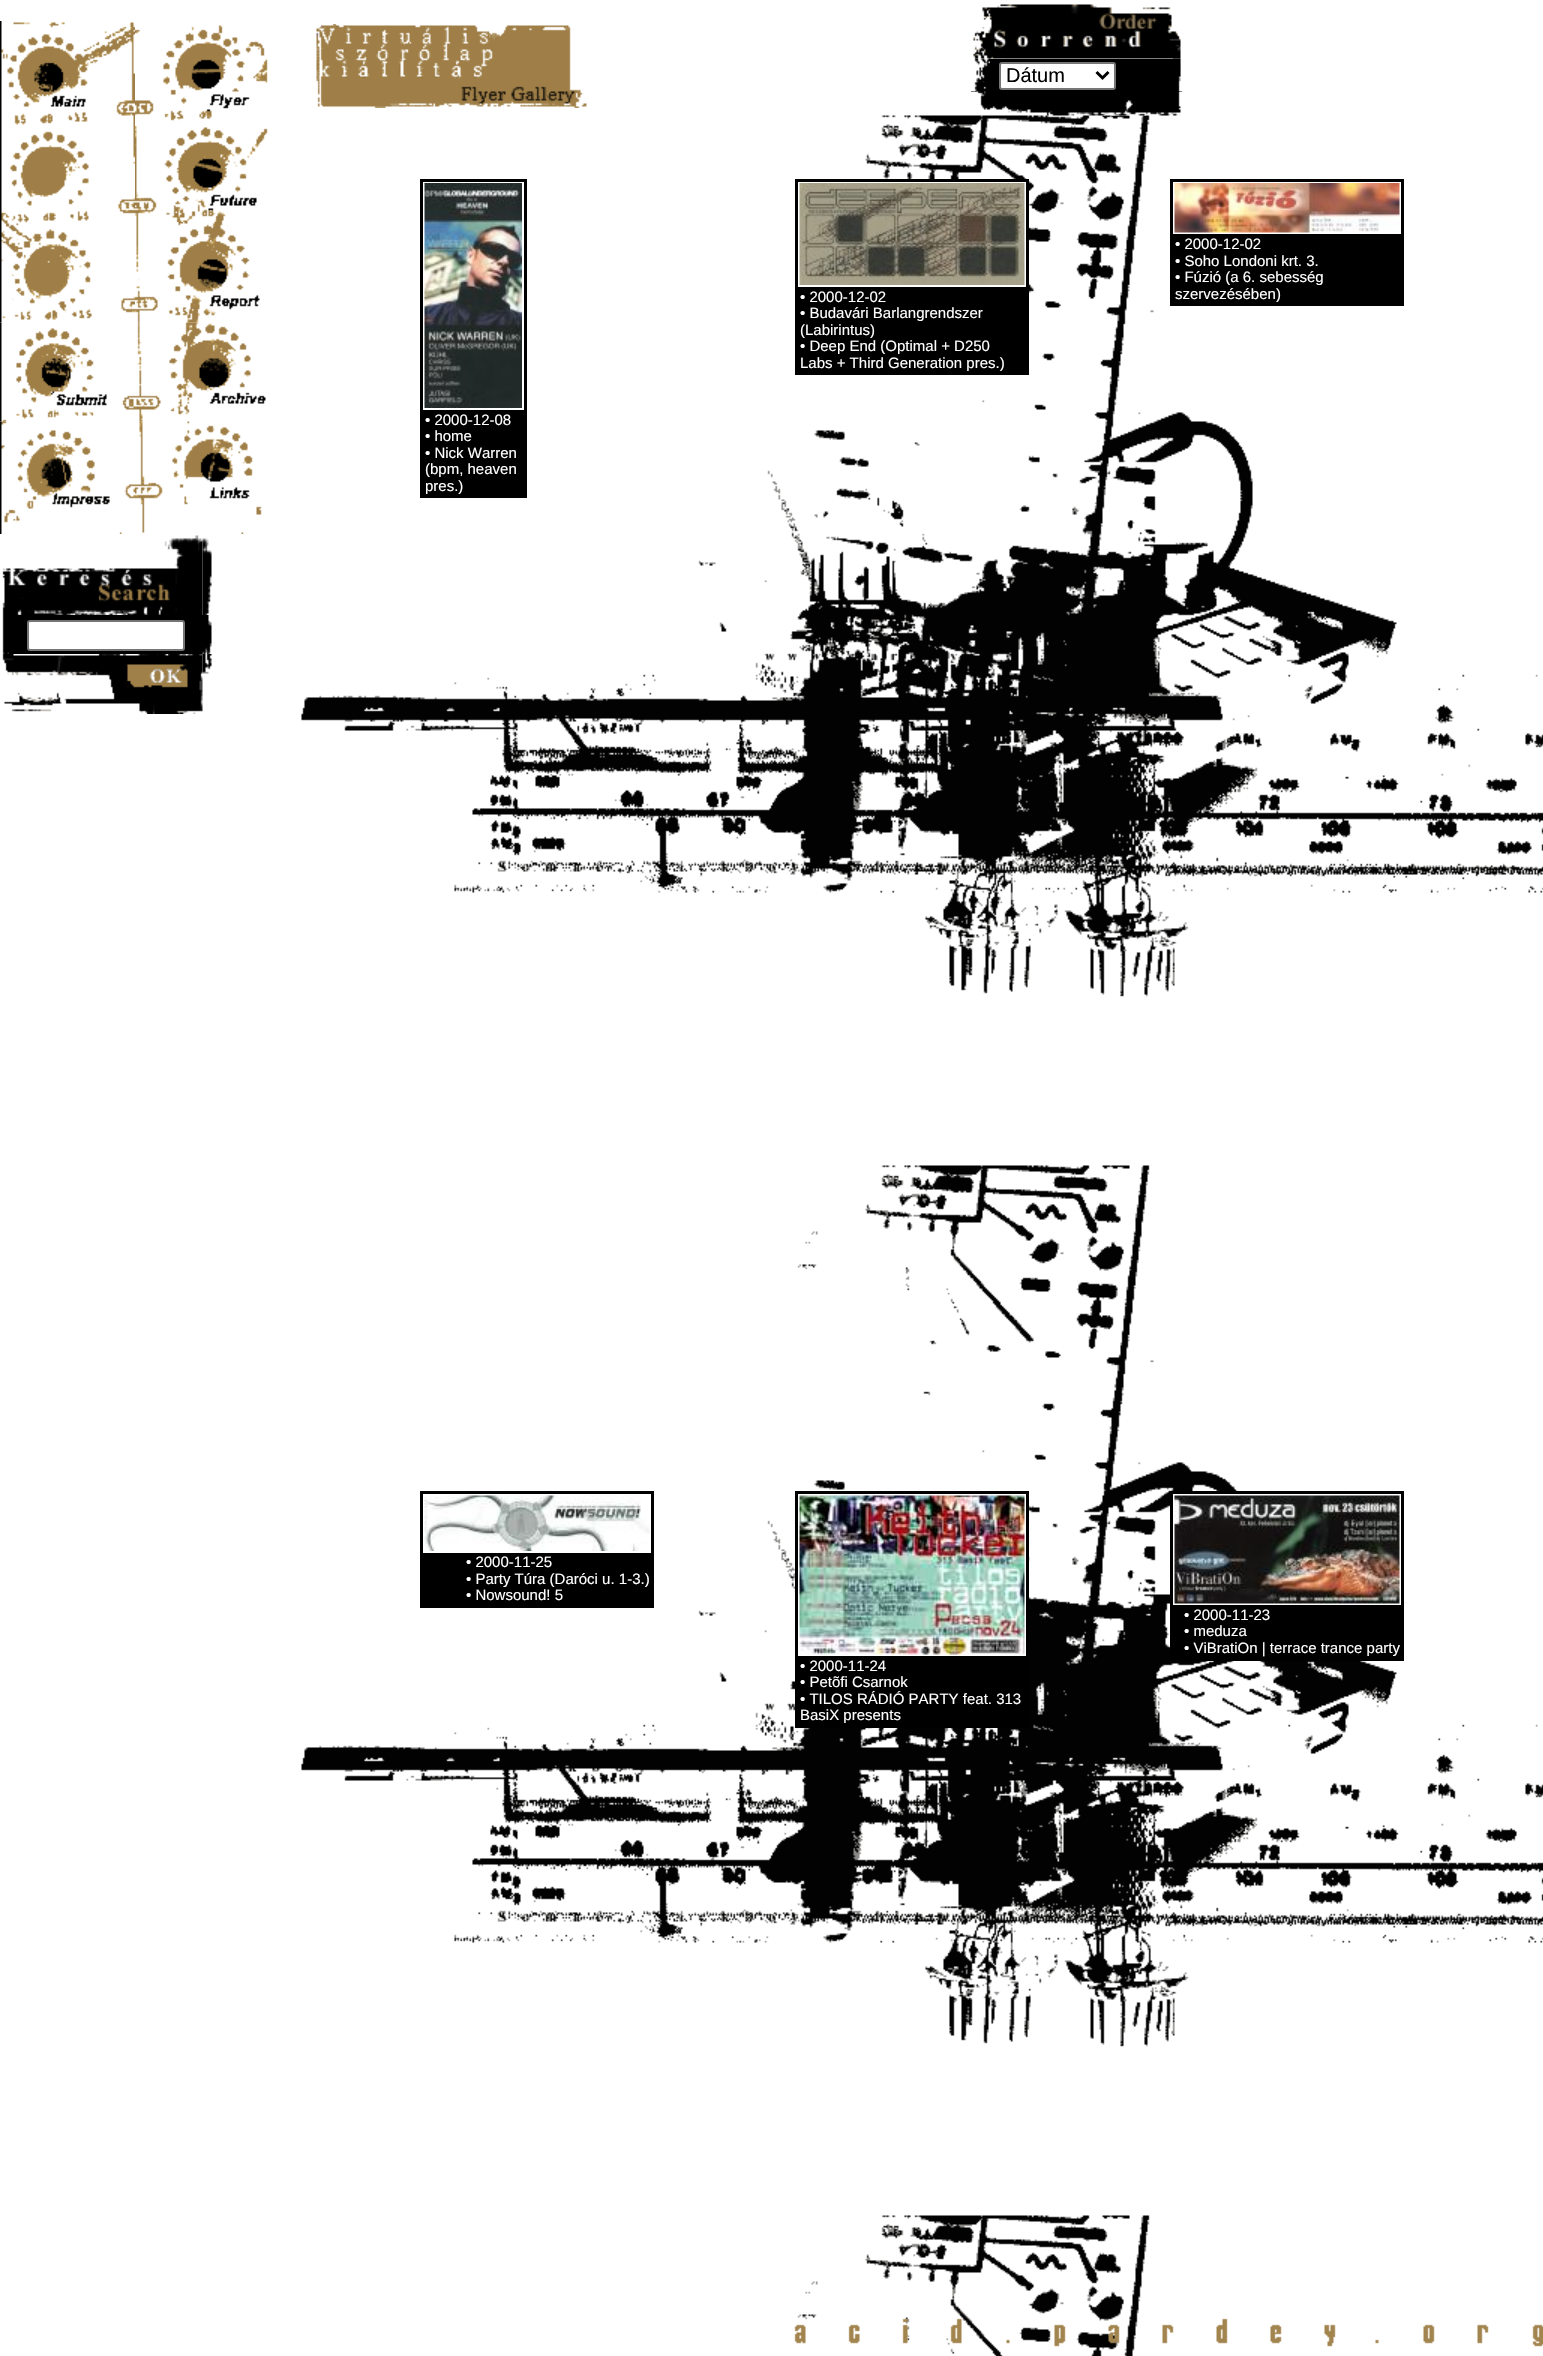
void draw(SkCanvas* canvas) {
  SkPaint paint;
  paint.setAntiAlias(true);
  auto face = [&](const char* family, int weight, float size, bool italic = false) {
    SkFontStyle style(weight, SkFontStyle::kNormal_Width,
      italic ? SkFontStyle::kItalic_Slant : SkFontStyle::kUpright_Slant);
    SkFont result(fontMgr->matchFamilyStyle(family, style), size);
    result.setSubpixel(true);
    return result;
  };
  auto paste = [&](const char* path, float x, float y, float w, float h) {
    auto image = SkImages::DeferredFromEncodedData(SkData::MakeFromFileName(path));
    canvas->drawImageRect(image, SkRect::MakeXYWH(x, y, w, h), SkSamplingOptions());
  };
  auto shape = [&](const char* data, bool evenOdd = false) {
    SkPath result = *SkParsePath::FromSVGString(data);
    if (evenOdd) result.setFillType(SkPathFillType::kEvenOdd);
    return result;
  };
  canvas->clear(0xffffffff);
  paste("img/1.png", 301, 115, 1242, 2241);
  paste("img/2.png", 973, 4, 208, 55);
  paint.setColor(0xff000000);
  canvas->drawRect(SkRect::MakeXYWH(971, 59, 211, 33), paint);
  paste("img/3.png", 971, 58, 19, 34);
  paint.setColor(0xffffffff);
  canvas->drawRoundRect(SkRect::MakeXYWH(1000, 63, 115, 26), 2, 2, paint);
  paint.setStroke(true);
  paint.setStrokeWidth(2);
  paint.setColor(0xff767676);
  canvas->drawRoundRect(SkRect::MakeXYWH(1000, 63, 115, 26), 2, 2, paint);
  paint.setStrokeWidth(3);
  paint.setColor(0xff000000);
  canvas->drawPath(shape("M1096.5 72L1102.5 78L1108.5 72"), paint);
  paste("img/4.png", 1173, 58, 9, 34);
  paste("img/5.png", 976, 91, 205, 25);
  paste("img/6.png", 0, 21, 135, 105);
  paste("img/7.png", 135, 25, 133, 96);
  paste("img/8.png", 0, 126, 135, 197);
  paste("img/9.png", 135, 126, 133, 96);
  paste("img/10.png", 135, 222, 125, 101);
  paste("img/11.png", 0, 322, 135, 100);
  paste("img/12.png", 135, 322, 131, 100);
  paste("img/13.png", 0, 421, 135, 113);
  paste("img/14.png", 135, 421, 127, 113);
  paste("img/15.png", 316, 24, 271, 84);
  paste("img/16.png", 2, 568, 7, 47);
  paste("img/17.png", 9, 535, 194, 80);
  paste("img/18.png", 202, 538, 10, 77);
  paste("img/19.png", 2, 615, 7, 39);
  paint.setStroke(false);
  canvas->drawRect(SkRect::MakeXYWH(9, 615, 194, 39), paint);
  paint.setColor(0xffffffff);
  canvas->drawRoundRect(SkRect::MakeXYWH(28, 621, 156, 29), 2, 2, paint);
  paint.setStroke(true);
  paint.setStrokeWidth(2);
  paint.setColor(0xff767676);
  canvas->drawRoundRect(SkRect::MakeXYWH(28, 621, 156, 29), 2, 2, paint);
  paste("img/20.png", 202, 615, 10, 39);
  paste("img/21.png", 2, 654, 7, 50);
  paste("img/22.png", 9, 654, 194, 60);
  paste("img/23.png", 202, 654, 10, 20);
  paint.setStroke(false);
  paint.setColor(0xff000000);
  canvas->drawRect(SkRect::MakeXYWH(1170, 179, 234, 127), paint);
  paint.setColor(0xffffffff);
  canvas->drawRect(SkRect::MakeXYWH(1173, 182, 228, 52), paint);
  paste("img/24.png", 1174, 183, 226, 50);
  paint.setColor(0xff000000);
  canvas->drawRect(SkRect::MakeXYWH(795, 179, 234, 196), paint);
  paint.setColor(0xffffffff);
  canvas->drawRect(SkRect::MakeXYWH(798, 182, 228, 105), paint);
  paste("img/25.png", 799, 183, 226, 102);
  paint.setColor(0xff000000);
  canvas->drawRect(SkRect::MakeXYWH(420, 179, 107, 319), paint);
  paint.setColor(0xffffffff);
  canvas->drawRect(SkRect::MakeXYWH(423, 182, 101, 228), paint);
  paste("img/26.png", 424, 183, 98, 225);
  paint.setColor(0xff000000);
  canvas->drawRect(SkRect::MakeXYWH(420, 1491, 234, 117), paint);
  paint.setColor(0xffffffff);
  canvas->drawRect(SkRect::MakeXYWH(423, 1494, 228, 59), paint);
  paste("img/27.png", 424, 1495, 226, 56);
  paint.setColor(0xff000000);
  canvas->drawRect(SkRect::MakeXYWH(1170, 1491, 234, 170), paint);
  paint.setColor(0xffffffff);
  canvas->drawRect(SkRect::MakeXYWH(1173, 1494, 228, 111), paint);
  paste("img/28.png", 1174, 1495, 226, 109);
  paint.setColor(0xff000000);
  canvas->drawRect(SkRect::MakeXYWH(795, 1491, 234, 237), paint);
  paint.setColor(0xffffffff);
  canvas->drawRect(SkRect::MakeXYWH(798, 1494, 228, 162), paint);
  paste("img/29.png", 799, 1495, 226, 160);
  paste("img/30.png", 794, 2318, 749, 29);
  auto f0 = face("Liberation Sans", 400, 20);
  paint.setColor(0xff000000);
  canvas->drawString("Dátum", 1006, 82, f0, paint);
  auto f1 = face("Liberation Sans", 400, 15);
  paint.setColor(0xffffffff);
  {
    const struct { const char* s; float x, y; } items[] = {
      {"• 2000-12-02", 1175, 249},
      {"• Soho Londoni krt. 3.", 1175, 266},
      {"• Fúzió (a 6. sebesség", 1175, 282},
      {"szervezésében)", 1175, 299},
      {"• 2000-12-02", 800, 302},
      {"• Budavári Barlangrendszer", 800, 318},
      {"(Labirintus)", 800, 335},
      {"• Deep End (Optimal + D250", 800, 351},
      {"Labs + Third Generation pres.)", 800, 368},
      {"• 2000-12-08", 425, 425},
      {"• home", 425, 441},
      {"• Nick Warren", 425, 458},
      {"(bpm, heaven", 425, 474},
      {"pres.)", 425, 491},
      {"• 2000-11-25", 466, 1567},
      {"• Party Túra (Daróci u. 1-3.)", 466, 1584},
      {"• Nowsound! 5", 466, 1600},
      {"• 2000-11-23", 1184, 1620},
      {"• meduza", 1184, 1636},
      {"• ViBratiOn | terrace trance party", 1184, 1653},
      {"• 2000-11-24", 800, 1671},
      {"• Petõfi Csarnok", 800, 1687},
      {"• TILOS RÁDIÓ PARTY feat. 313", 800, 1704},
      {"BasiX presents", 800, 1720},
    };
    for (auto [s, x, y] : items) {
      canvas->drawString(s, x, y, f1, paint);
    }
  }
}
